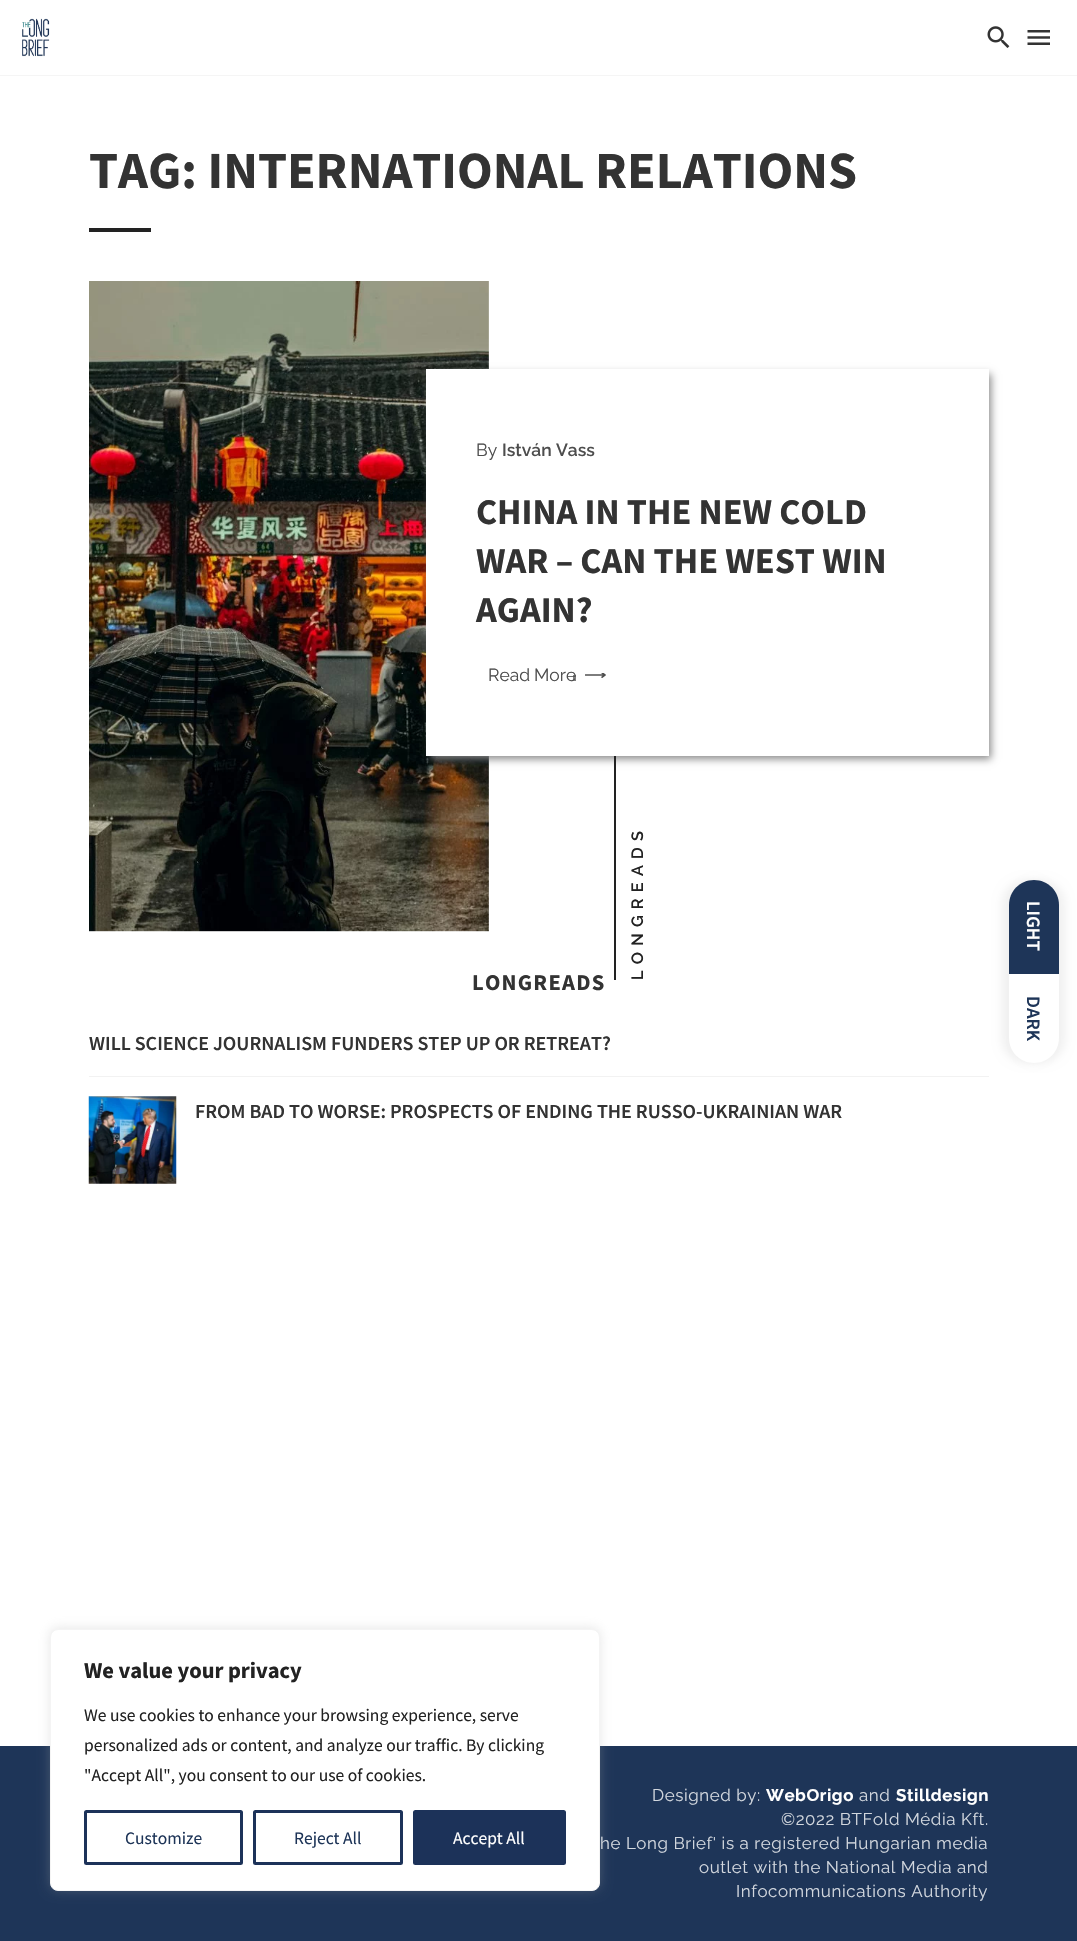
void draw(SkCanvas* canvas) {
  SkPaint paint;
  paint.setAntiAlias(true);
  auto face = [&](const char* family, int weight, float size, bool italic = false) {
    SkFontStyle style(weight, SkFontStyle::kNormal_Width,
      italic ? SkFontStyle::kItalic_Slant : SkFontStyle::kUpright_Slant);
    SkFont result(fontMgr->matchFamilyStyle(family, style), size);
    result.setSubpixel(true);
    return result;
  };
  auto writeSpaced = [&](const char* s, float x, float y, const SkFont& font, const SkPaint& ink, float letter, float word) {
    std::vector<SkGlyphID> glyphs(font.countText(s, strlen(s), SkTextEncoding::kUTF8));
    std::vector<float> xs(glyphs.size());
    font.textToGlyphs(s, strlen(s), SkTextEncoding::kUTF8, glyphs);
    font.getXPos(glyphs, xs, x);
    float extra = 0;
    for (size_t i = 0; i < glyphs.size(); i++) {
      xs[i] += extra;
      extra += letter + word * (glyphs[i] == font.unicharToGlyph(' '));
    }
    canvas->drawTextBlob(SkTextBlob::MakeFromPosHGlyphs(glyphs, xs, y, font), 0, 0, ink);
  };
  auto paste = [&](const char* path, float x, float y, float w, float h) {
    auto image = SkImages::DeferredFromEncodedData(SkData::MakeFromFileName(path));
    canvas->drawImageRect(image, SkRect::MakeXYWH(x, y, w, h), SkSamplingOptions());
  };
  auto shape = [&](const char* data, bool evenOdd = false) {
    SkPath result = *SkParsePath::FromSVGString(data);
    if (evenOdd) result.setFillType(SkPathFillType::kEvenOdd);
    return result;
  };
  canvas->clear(0xffffffff);
  paint.setColor(0xff222222);
  canvas->drawRect(SkRect::MakeXYWH(89, 228, 62, 4), paint);
  paste("img/1.png", 89, 281, 400, 651);
  paint.setColor(0xff888888);
  paint.setMaskFilter(SkMaskFilter::MakeBlur(kNormal_SkBlurStyle, 4));
  canvas->drawRect(SkRect::MakeXYWH(431, 374, 560, 385), paint);
  paint.setMaskFilter(nullptr);
  paint.setColor(0xffffffff);
  canvas->drawRect(SkRect::MakeXYWH(426, 369, 563, 387), paint);
  paint.setColor(0xff808080);
  canvas->drawRect(SkRect::MakeXYWH(573, 675, 3, 6), paint);
  paste("img/2.png", 585, 673, 21, 5);
  paint.setColor(0xff222222);
  canvas->drawRect(SkRect::MakeXYWH(614, 756, 2, 224), paint);
  paint.setColor(0xfff2f2f2);
  canvas->drawRect(SkRect::MakeXYWH(89, 1076, 900, 1), paint);
  paste("img/3.png", 88, 1096, 89, 88);
  paint.setColor(0xfff5f5f5);
  canvas->drawPath(shape("M0 75V76H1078V1V75Z"), paint);
  paste("img/4.png", 22, 18, 28, 39);
  paste("img/5.png", 987, 26, 23, 22);
  paste("img/6.png", 1027, 30, 23, 15);
  paint.setColor(0x0d000000);
  paint.setMaskFilter(SkMaskFilter::MakeBlur(kNormal_SkBlurStyle, 4));
  canvas->drawRoundRect(SkRect::MakeXYWH(1001, 880, 50, 183), 25, 25, paint);
  paint.setMaskFilter(nullptr);
  paint.setMaskFilter(SkMaskFilter::MakeBlur(kNormal_SkBlurStyle, 4));
  canvas->drawRoundRect(SkRect::MakeXYWH(1016, 880, 50, 183), 25, 25, paint);
  paint.setMaskFilter(nullptr);
  paint.setColor(0xff1e3558);
  canvas->drawPath(shape("M1034 880C1048 880 1059 891 1059 905V974H1009V905C1009 891 1020 880 1034 880Z"), paint);
  paint.setColor(0xffffffff);
  canvas->drawPath(shape("M1009 974H1059V1038C1059 1052 1048 1063 1034 1063C1020 1063 1009 1052 1009 1038Z"), paint);
  paint.setColor(0xff1e3558);
  canvas->drawRect(SkRect::MakeXYWH(0, 1746, 1077, 195), paint);
  paint.setColor(0x4dacabab);
  paint.setMaskFilter(SkMaskFilter::MakeBlur(kNormal_SkBlurStyle, 6));
  canvas->drawRoundRect(SkRect::MakeXYWH(50, 1628, 550, 262), 8, 8, paint);
  paint.setMaskFilter(nullptr);
  paint.setColor(0xffffffff);
  canvas->drawRoundRect(SkRect::MakeXYWH(50.5f, 1629.5f, 549, 261), 7.5f, 7.5f, paint);
  paint.setStroke(true);
  paint.setStrokeWidth(1);
  paint.setColor(0xfff4f4f4);
  canvas->drawRoundRect(SkRect::MakeXYWH(50.5f, 1629.5f, 549, 261), 7.5f, 7.5f, paint);
  paint.setStrokeWidth(3);
  paint.setColor(0xff1c3259);
  canvas->drawRoundRect(SkRect::MakeXYWH(85.5f, 1811.5f, 156, 52), 1, 1, paint);
  canvas->drawRoundRect(SkRect::MakeXYWH(254.5f, 1811.5f, 147, 52), 1, 1, paint);
  paint.setStroke(false);
  canvas->drawRoundRect(SkRect::MakeXYWH(414.5f, 1811.5f, 150, 52), 1, 1, paint);
  paint.setStroke(true);
  canvas->drawRoundRect(SkRect::MakeXYWH(414.5f, 1811.5f, 150, 52), 1, 1, paint);
  auto f0 = face("Source Sans Pro", 700, 52.25f);
  paint.setStroke(false);
  paint.setColor(0xff333333);
  canvas->drawString("TAG: INTERNATIONAL RELATIONS", 89, 188, f0, paint);
  auto f1 = face("Raleway", 400, 17.5f);
  paint.setColor(0xff4d4d4d);
  canvas->drawString("By", 476, 456, f1, paint);
  auto f2 = face("Raleway", 600, 17.5f);
  canvas->drawString("István Vass", 502, 456, f2, paint);
  auto f3 = face("Source Sans Pro", 700, 36.25f);
  paint.setColor(0xff333333);
  {
    const struct { const char* s; float x, y; } items[] = {
      {"CHINA IN THE NEW COLD", 476, 524},
      {"WAR – CAN THE WEST WIN", 476, 573},
      {"AGAIN?", 476, 622},
    };
    for (auto [s, x, y] : items) {
      canvas->drawString(s, x, y, f3, paint);
    }
  }
  paint.setColor(0xff4d4d4d);
  canvas->drawString("Read", 488, 681, f1, paint);
  canvas->drawString("More", 534, 681, f1, paint);
  auto f4 = face("Raleway", 600, 16.25f);
  paint.setColor(0xff222222);
  canvas->save();
  canvas->rotate(-90, 643, 980);
  writeSpaced("LONGREADS", 643, 980, f4, paint, 6.25f, 0);
  canvas->restore();
  auto f5 = face("Source Sans Pro", 700, 22.5f);
  paint.setColor(0xff333333);
  writeSpaced("LONGREADS", 472, 990, f5, paint, 1.25f, 0);
  auto f6 = face("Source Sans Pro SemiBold", 600, 20);
  canvas->drawString("WILL SCIENCE JOURNALISM FUNDERS STEP UP OR RETREAT?", 89, 1050, f6, paint);
  canvas->drawString("FROM BAD TO WORSE: PROSPECTS OF ENDING THE RUSSO-UKRAINIAN WAR", 195, 1118, f6, paint);
  auto f7 = face("Source Sans Pro SemiBold", 600, 19);
  paint.setColor(0xffffffff);
  canvas->save();
  canvas->rotate(90, 1027, 901);
  canvas->drawString("LIGHT", 1027, 901, f7, paint);
  canvas->restore();
  paint.setColor(0xff1e3558);
  canvas->save();
  canvas->rotate(90, 1027, 996);
  canvas->drawString("DARK", 1027, 996, f7, paint);
  canvas->restore();
  auto f8 = face("Raleway", 400, 16.9f);
  paint.setColor(0xffd2d7de);
  writeSpaced("Designed by:", 652, 1801, f8, paint, 0.6f, 0);
  auto f9 = face("Raleway", 700, 16.9f);
  paint.setColor(0xffffffff);
  writeSpaced("WebOrigo", 766, 1801, f9, paint, 0.6f, 0);
  paint.setColor(0xffd2d7de);
  writeSpaced("and", 859, 1801, f8, paint, 0.6f, 0);
  paint.setColor(0xffffffff);
  writeSpaced("Stilldesign", 896, 1801, f9, paint, 0.6f, 0);
  paint.setColor(0xffd2d7de);
  {
    const struct { const char* s; float x, y; } items[] = {
      {"©2022 BTFold Média Kft.", 781, 1825},
      {"he Long Brief' is a registered Hungarian media", 600, 1849},
      {"outlet with the National Media and", 699, 1873},
      {"Infocommunications Authority", 736, 1897},
    };
    for (auto [s, x, y] : items) {
      writeSpaced(s, x, y, f8, paint, 0.6f, 0);
    }
  }
  paint.setColor(0xff222222);
  canvas->drawString("We value your privacy", 84, 1678, f5, paint);
  auto f10 = face("Source Sans Pro", 400, 17.5f);
  {
    const struct { const char* s; float x, y; } items[] = {
      {"We use cookies to enhance your browsing experience, serve", 84, 1721},
      {"personalized ads or content, and analyze our traffic. By clicking", 84, 1751},
      {"\"Accept All\", you consent to our use of cookies.", 84, 1781},
    };
    for (auto [s, x, y] : items) {
      canvas->drawString(s, x, y, f10, paint);
    }
  }
  paint.setColor(0xff1e3558);
  canvas->drawString("Customize", 125, 1844, f10, paint);
  canvas->drawString("Reject All", 294, 1844, f10, paint);
  paint.setColor(0xffffffff);
  canvas->drawString("Accept All", 453, 1844, f10, paint);
}
